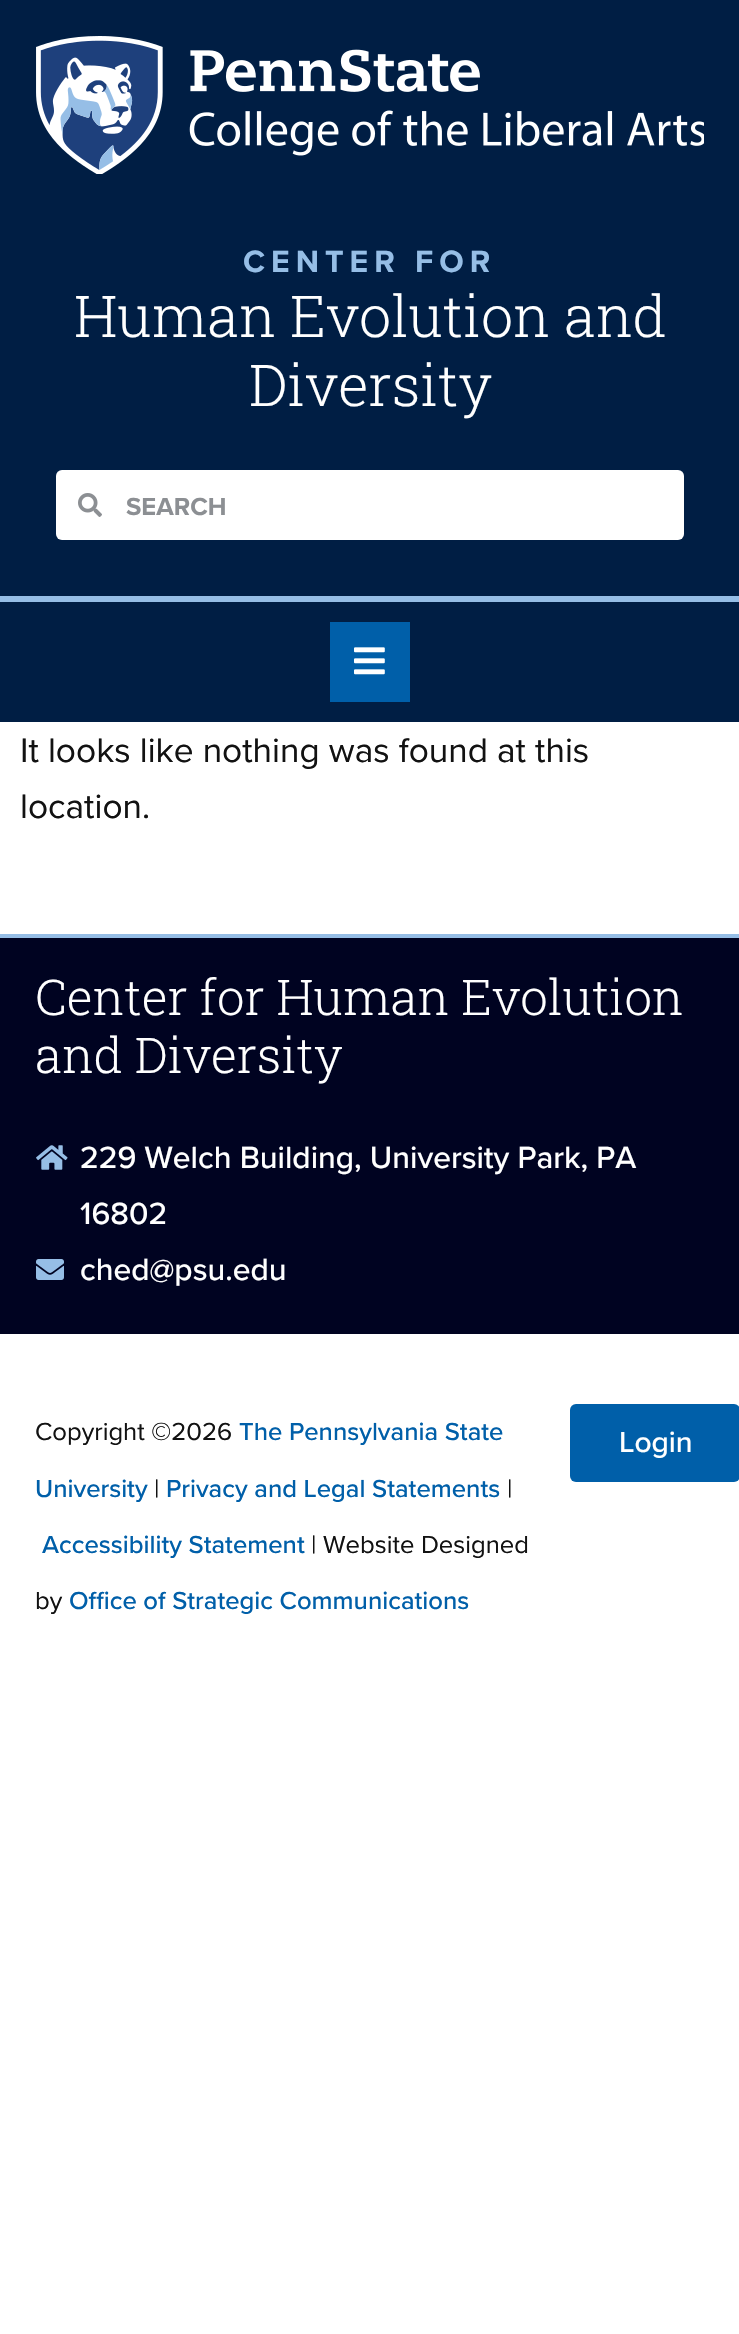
void draw(SkCanvas* canvas) {
  SkPaint paint;
  paint.setAntiAlias(true);
  auto face = [&](const char* family, int weight, float size, bool italic = false) {
    SkFontStyle style(weight, SkFontStyle::kNormal_Width,
      italic ? SkFontStyle::kItalic_Slant : SkFontStyle::kUpright_Slant);
    SkFont result(fontMgr->matchFamilyStyle(family, style), size);
    result.setSubpixel(true);
    return result;
  };
  auto writeSpaced = [&](const char* s, float x, float y, const SkFont& font, const SkPaint& ink, float letter, float word) {
    std::vector<SkGlyphID> glyphs(font.countText(s, strlen(s), SkTextEncoding::kUTF8));
    std::vector<float> xs(glyphs.size());
    font.textToGlyphs(s, strlen(s), SkTextEncoding::kUTF8, glyphs);
    font.getXPos(glyphs, xs, x);
    float extra = 0;
    for (size_t i = 0; i < glyphs.size(); i++) {
      xs[i] += extra;
      extra += letter + word * (glyphs[i] == font.unicharToGlyph(' '));
    }
    canvas->drawTextBlob(SkTextBlob::MakeFromPosHGlyphs(glyphs, xs, y, font), 0, 0, ink);
  };
  auto paste = [&](const char* path, float x, float y, float w, float h) {
    auto image = SkImages::DeferredFromEncodedData(SkData::MakeFromFileName(path));
    canvas->drawImageRect(image, SkRect::MakeXYWH(x, y, w, h), SkSamplingOptions());
  };
  canvas->clear(0xffffffff);
  paint.setColor(0xff001e44);
  canvas->drawRect(SkRect::MakeXYWH(0, 0, 739, 722), paint);
  paint.setColor(0xff96bee6);
  canvas->drawRect(SkRect::MakeXYWH(0, 596, 739, 6), paint);
  paste("img/1.png", 36, 36, 668, 138);
  paint.setColor(0xffffffff);
  canvas->drawRoundRect(SkRect::MakeXYWH(56, 470, 628, 70), 6, 6, paint);
  paste("img/2.png", 78, 493, 24, 24);
  paint.setColor(0xff005fa9);
  canvas->drawRect(SkRect::MakeXYWH(330, 622, 80, 80), paint);
  paste("img/3.png", 354, 647, 31, 28);
  paint.setColor(0xff000321);
  canvas->drawRect(SkRect::MakeXYWH(0, 938, 739, 396), paint);
  paint.setColor(0xff96bee6);
  canvas->drawRect(SkRect::MakeXYWH(0, 934, 739, 4), paint);
  paste("img/4.png", 36, 1145, 32, 25);
  paste("img/5.png", 36, 1259, 28, 21);
  paint.setColor(0xff005fa9);
  canvas->drawRoundRect(SkRect::MakeXYWH(570, 1404, 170, 78), 6, 6, paint);
  auto f0 = face("Proxima Nova", 700, 32);
  paint.setColor(0xff96bee6);
  writeSpaced("CENTER FOR", 243, 272, f0, paint, 6, 0);
  auto f1 = face("Roboto Slab", 300, 57.6f);
  paint.setColor(0xffffffff);
  canvas->drawString("Human Evolution and", 74, 337, f1, paint);
  canvas->drawString("Diversity", 249, 406, f1, paint);
  auto f2 = face("Proxima Nova", 700, 25.6f);
  paint.setColor(0xff8c8f93);
  canvas->drawString("SEARCH", 126, 515, f2, paint);
  auto f3 = face("Proxima Nova", 400, 35.25f);
  paint.setColor(0xff121212);
  canvas->drawString("It looks like nothing was found at this", 20, 762, f3, paint);
  canvas->drawString("location.", 20, 818, f3, paint);
  auto f4 = face("Roboto Slab", 300, 49.25f);
  paint.setColor(0xffffffff);
  canvas->drawString("Center for Human Evolution", 35, 1015, f4, paint);
  canvas->drawString("and Diversity", 35, 1073, f4, paint);
  auto f5 = face("Proxima Nova", 500, 31.7f);
  {
    const struct { const char* s; float x, y; } items[] = {
      {"229 Welch Building, University Park, PA", 80, 1168},
      {"16802", 80, 1224},
      {"ched@psu.edu", 80, 1280},
    };
    for (auto [s, x, y] : items) {
      canvas->drawString(s, x, y, f5, paint);
    }
  }
  auto f6 = face("Proxima Nova", 400, 25.6f);
  paint.setColor(0xff121212);
  canvas->drawString("Copyright ©2026", 35, 1440, f6, paint);
  auto f7 = face("Proxima Nova", 500, 25.6f);
  paint.setColor(0xff005fa9);
  canvas->drawString("The Pennsylvania State", 239, 1440, f7, paint);
  canvas->drawString("University", 35, 1497, f7, paint);
  paint.setColor(0xff121212);
  canvas->drawString("|", 154, 1497, f6, paint);
  paint.setColor(0xff005fa9);
  canvas->drawString("Privacy and Legal Statements", 166, 1497, f7, paint);
  paint.setColor(0xff121212);
  canvas->drawString("|", 507, 1497, f6, paint);
  paint.setColor(0xff005fa9);
  canvas->drawString("Accessibility Statement", 42, 1553, f7, paint);
  paint.setColor(0xff121212);
  canvas->drawString("| Website Designed", 311, 1553, f6, paint);
  canvas->drawString("by", 35, 1609, f6, paint);
  paint.setColor(0xff005fa9);
  canvas->drawString("Office of Strategic Communications", 69, 1609, f7, paint);
  auto f8 = face("Proxima Nova", 500, 30);
  paint.setColor(0xffffffff);
  canvas->drawString("Login", 619, 1452, f8, paint);
}
